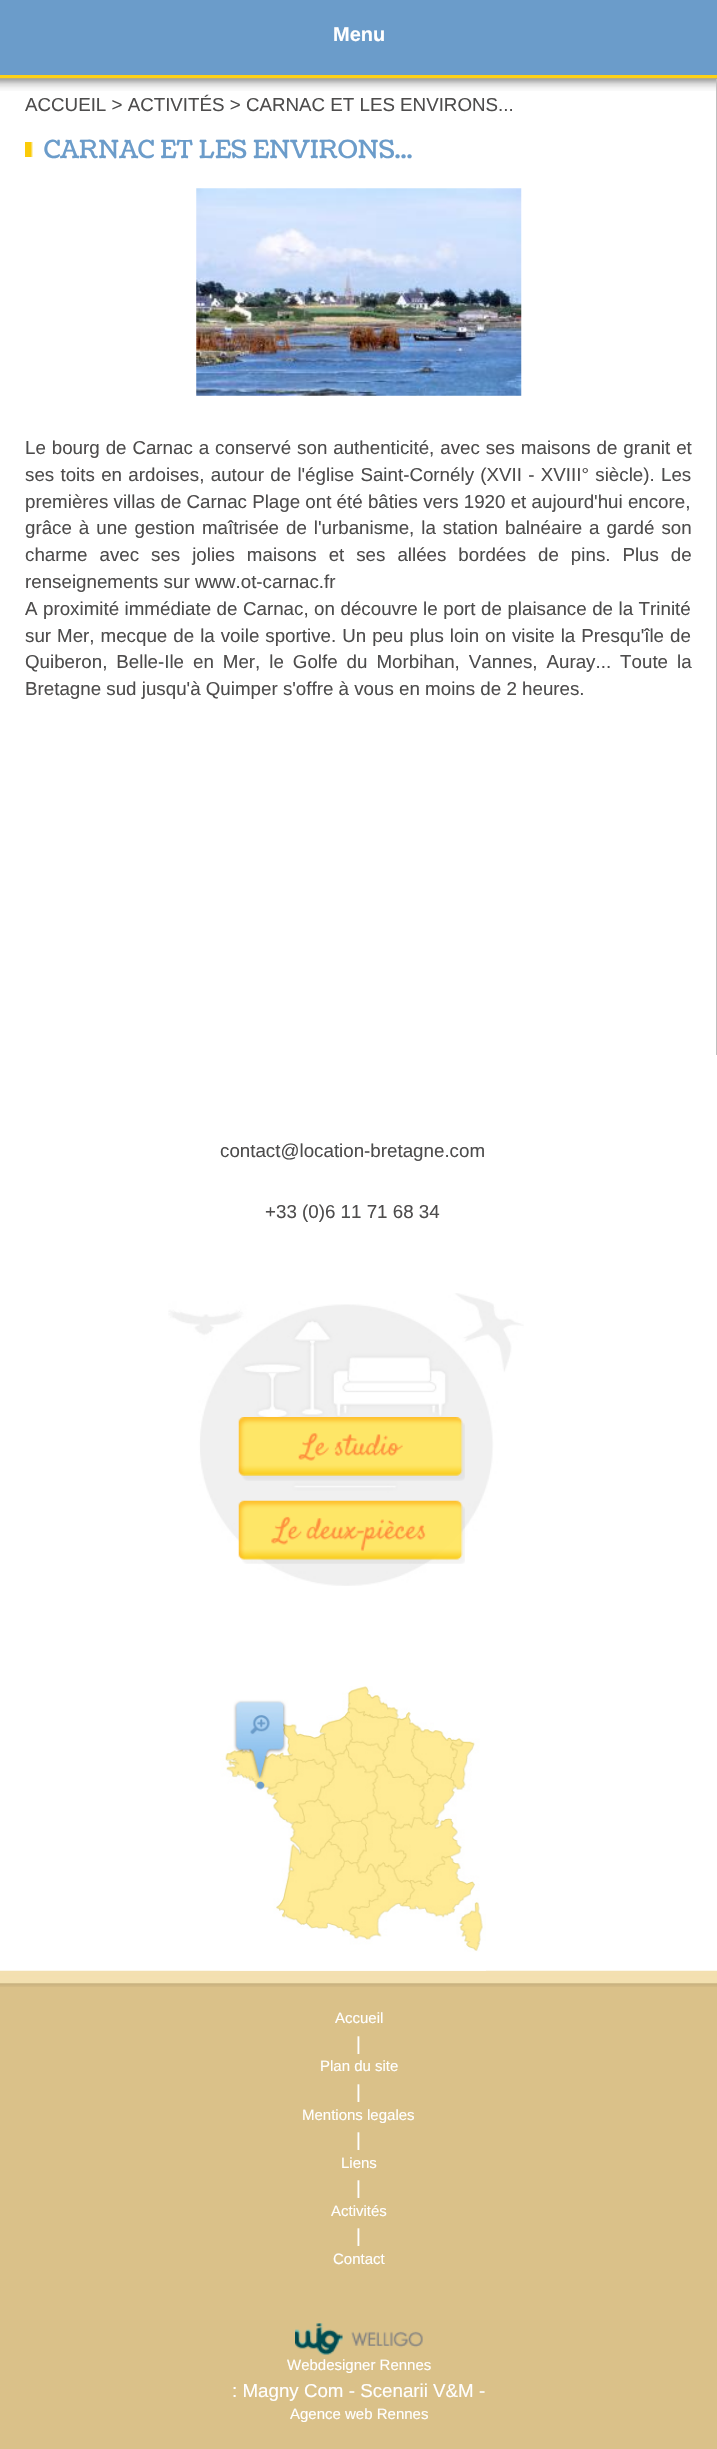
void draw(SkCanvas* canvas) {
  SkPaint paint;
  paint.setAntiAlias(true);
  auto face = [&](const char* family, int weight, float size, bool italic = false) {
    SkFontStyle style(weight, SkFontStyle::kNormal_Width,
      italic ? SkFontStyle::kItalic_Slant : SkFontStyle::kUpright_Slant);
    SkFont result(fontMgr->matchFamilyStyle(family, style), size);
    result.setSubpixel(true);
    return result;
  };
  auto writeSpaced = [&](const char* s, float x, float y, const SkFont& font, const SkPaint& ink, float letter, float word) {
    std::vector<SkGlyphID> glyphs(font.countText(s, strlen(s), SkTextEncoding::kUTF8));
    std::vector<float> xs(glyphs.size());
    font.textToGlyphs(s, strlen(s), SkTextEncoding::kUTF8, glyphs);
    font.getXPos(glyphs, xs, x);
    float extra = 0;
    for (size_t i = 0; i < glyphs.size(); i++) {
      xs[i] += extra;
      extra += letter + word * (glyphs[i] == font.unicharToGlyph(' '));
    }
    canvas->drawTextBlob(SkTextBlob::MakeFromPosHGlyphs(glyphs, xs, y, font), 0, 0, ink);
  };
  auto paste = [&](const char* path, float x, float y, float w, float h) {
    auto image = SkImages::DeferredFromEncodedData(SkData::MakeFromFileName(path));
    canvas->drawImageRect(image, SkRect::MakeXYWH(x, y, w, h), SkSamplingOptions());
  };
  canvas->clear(0xffffffff);
  paint.setColor(0xff6b9cca);
  canvas->drawRect(SkRect::MakeXYWH(0, 0, 717, 75), paint);
  paint.setColor(0xfffed116);
  canvas->drawRect(SkRect::MakeXYWH(0, 75, 717, 4), paint);
  paste("img/1.png", 0, 78, 717, 13);
  paint.setColor(0xffbfbfbf);
  canvas->drawRect(SkRect::MakeXYWH(716, 79, 1, 976), paint);
  paste("img/2.png", 25, 142, 8, 15);
  paste("img/3.png", 196, 188, 326, 208);
  paste("img/4.png", 168, 1293, 356, 293);
  paste("img/5.png", 238, 1417, 227, 64);
  paste("img/6.png", 238, 1500, 227, 64);
  paste("img/8.png", 0, 1970, 717, 17);
  paste("img/7.png", 220, 1686, 266, 285);
  paint.setColor(0xffdac189);
  canvas->drawRect(SkRect::MakeXYWH(0, 1987, 717, 462), paint);
  paste("img/9.png", 295, 2323, 128, 32);
  auto f0 = face("Liberation Sans", 700, 20);
  paint.setColor(0xffffffff);
  canvas->drawString("Menu", 333, 41, f0, paint);
  auto f1 = face("Liberation Sans", 400, 18.75f);
  paint.setColor(0xff4d4c4c);
  canvas->drawString("ACCUEIL > ACTIVITÉS > CARNAC ET LES ENVIRONS...", 25, 111, f1, paint);
  auto f2 = face("Coustard", 400, 25);
  paint.setColor(0xff6b9cca);
  canvas->drawString("CARNAC ET LES ENVIRONS...", 44, 158, f2, paint);
  paint.setColor(0xff4d4c4c);
  writeSpaced("Le bourg de Carnac a conservé son authenticité, avec ses maisons de granit et", 25, 454, f1, paint, 0, 0.7f);
  writeSpaced("ses toits en ardoises, autour de l'église Saint-Cornély (XVII - XVIII° siècle). Les", 25, 481, f1, paint, 0, 1.1f);
  canvas->drawString("premières villas de Carnac Plage ont été bâties vers 1920 et aujourd'hui encore,", 25, 508, f1, paint);
  writeSpaced("grâce à une gestion maîtrisée de l'urbanisme, la station balnéaire a gardé son", 25, 534, f1, paint, 0, 1.75f);
  writeSpaced("charme avec ses jolies maisons et ses allées bordées de pins. Plus de", 25, 561, f1, paint, 0, 6.75f);
  canvas->drawString("renseignements sur www.ot-carnac.fr", 25, 588, f1, paint);
  writeSpaced("A proximité immédiate de Carnac, on découvre le port de plaisance de la Trinité", 25, 615, f1, paint, 0, 0.3f);
  writeSpaced("sur Mer, mecque de la voile sportive. Un peu plus loin on visite la Presqu'île de", 25, 642, f1, paint, 0, 0.8f);
  writeSpaced("Quiberon, Belle-Ile en Mer, le Golfe du Morbihan, Vannes, Auray... Toute la", 25, 668, f1, paint, 0, 3.75f);
  {
    const struct { const char* s; float x, y; } items[] = {
      {"Bretagne sud jusqu'à Quimper s'offre à vous en moins de 2 heures.", 25, 695},
      {"contact@location-bretagne.com", 220, 1157},
      {"+33 (0)6 11 71 68 34", 265, 1218},
    };
    for (auto [s, x, y] : items) {
      canvas->drawString(s, x, y, f1, paint);
    }
  }
  auto f3 = face("Liberation Sans", 400, 15);
  paint.setColor(0xffffffff);
  canvas->drawString("Accueil", 335, 2023, f3, paint);
  canvas->drawString("|", 356, 2050, f1, paint);
  canvas->drawString("Plan du site", 320, 2071, f3, paint);
  canvas->drawString("|", 356, 2098, f1, paint);
  canvas->drawString("Mentions legales", 302, 2120, f3, paint);
  canvas->drawString("|", 356, 2146, f1, paint);
  canvas->drawString("Liens", 341, 2168, f3, paint);
  canvas->drawString("|", 356, 2194, f1, paint);
  canvas->drawString("Activités", 331, 2216, f3, paint);
  canvas->drawString("|", 356, 2242, f1, paint);
  canvas->drawString("Contact", 333, 2264, f3, paint);
  canvas->drawString("Webdesigner Rennes", 287, 2370, f3, paint);
  canvas->drawString(": Magny Com - Scenarii V&M -", 232, 2397, f1, paint);
  canvas->drawString("Agence web Rennes", 290, 2419, f3, paint);
}
